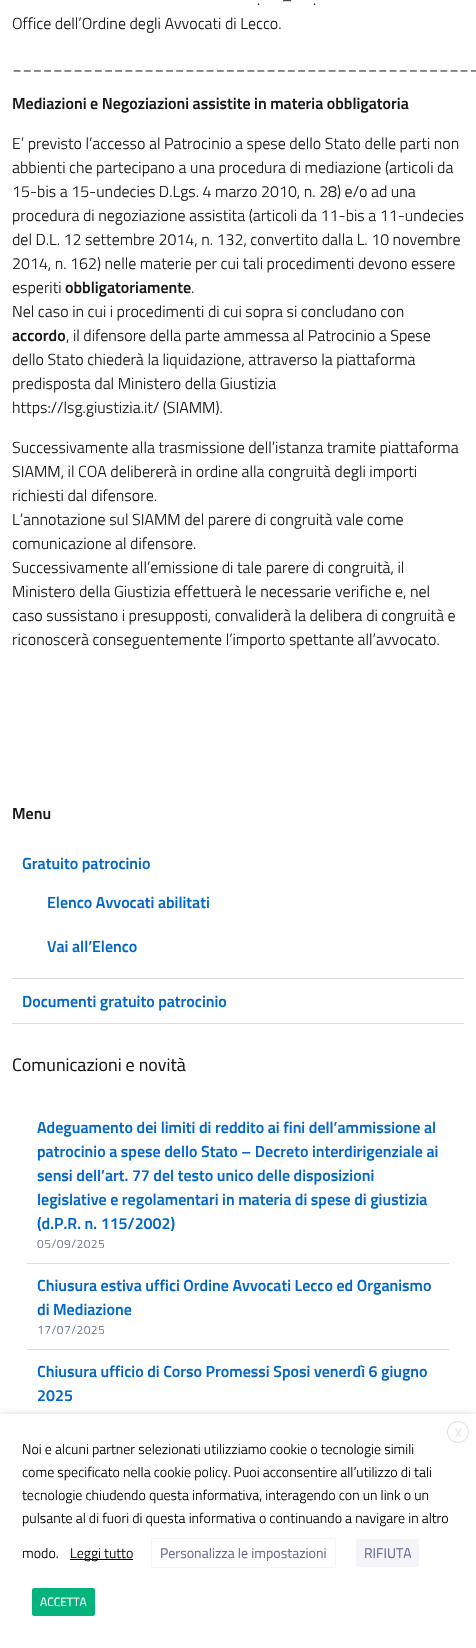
void draw(SkCanvas* canvas) {
  SkPaint paint;
  paint.setAntiAlias(true);
  auto face = [&](const char* family, int weight, float size, bool italic = false) {
    SkFontStyle style(weight, SkFontStyle::kNormal_Width,
      italic ? SkFontStyle::kItalic_Slant : SkFontStyle::kUpright_Slant);
    SkFont result(fontMgr->matchFamilyStyle(family, style), size);
    result.setSubpixel(true);
    return result;
  };
  auto writeSpaced = [&](const char* s, float x, float y, const SkFont& font, const SkPaint& ink, float letter, float word) {
    std::vector<SkGlyphID> glyphs(font.countText(s, strlen(s), SkTextEncoding::kUTF8));
    std::vector<float> xs(glyphs.size());
    font.textToGlyphs(s, strlen(s), SkTextEncoding::kUTF8, glyphs);
    font.getXPos(glyphs, xs, x);
    float extra = 0;
    for (size_t i = 0; i < glyphs.size(); i++) {
      xs[i] += extra;
      extra += letter + word * (glyphs[i] == font.unicharToGlyph(' '));
    }
    canvas->drawTextBlob(SkTextBlob::MakeFromPosHGlyphs(glyphs, xs, y, font), 0, 0, ink);
  };
  canvas->clear(0xffffffff);
  {
    const struct { float x, y, w, h; SkColor color; } items[] = {
      {12, 978, 452, 1, 0xffdddddd},
      {12, 1023, 452, 1, 0xffdddddd},
      {27, 1263, 422, 1, 0xffdddddd},
      {27, 1349, 422, 1, 0xffdddddd},
    };
    for (auto [x, y, w, h, color] : items) {
      paint.setColor(color);
      canvas->drawRect(SkRect::MakeXYWH(x, y, w, h), paint);
    }
  }
  paint.setColor(0x80000000);
  paint.setMaskFilter(SkMaskFilter::MakeBlur(kNormal_SkBlurStyle, 5));
  canvas->drawRect(SkRect::MakeXYWH(0, 1419, 476, 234), paint);
  paint.setMaskFilter(nullptr);
  paint.setColor(0xffffffff);
  canvas->drawRect(SkRect::MakeXYWH(0, 1414, 476, 234), paint);
  paint.setStroke(true);
  paint.setStrokeWidth(1);
  paint.setColor(0xffdddddd);
  canvas->drawCircle(458, 1432, 10.5f, paint);
  paint.setStroke(false);
  paint.setColor(0xff000000);
  canvas->drawRect(SkRect::MakeXYWH(70, 1559, 63, 1), paint);
  paint.setStroke(true);
  paint.setColor(0xfff4f4f9);
  canvas->drawRoundRect(SkRect::MakeXYWH(151.5f, 1538.5f, 184, 29), 1.5f, 1.5f, paint);
  paint.setStroke(false);
  canvas->drawRoundRect(SkRect::MakeXYWH(356, 1539, 63, 28), 2, 2, paint);
  paint.setColor(0xff04b47c);
  canvas->drawRoundRect(SkRect::MakeXYWH(32, 1588, 63, 28), 2, 2, paint);
  auto f0 = face("Titillium Web", 300, 16);
  paint.setColor(0xff19191a);
  {
    const struct { const char* s; float x, y; } items[] = {
      {"–", 282, 5},
      {".", 257, 5},
      {".", 313, 5},
      {"Office dell’Ordine degli Avvocati di Lecco.", 12, 29},
      {"______________________________________________", 12, 69},
    };
    for (auto [s, x, y] : items) {
      canvas->drawString(s, x, y, f0, paint);
    }
  }
  auto f1 = face("Titillium Web", 600, 16);
  canvas->drawString("Mediazioni e Negoziazioni assistite in materia obbligatoria", 12, 109, f1, paint);
  {
    const struct { const char* s; float x, y; } items[] = {
      {"E’ previsto l’accesso al Patrocinio a spese dello Stato delle parti non", 12, 149},
      {"abbienti che partecipano a una procedura di mediazione (articoli da", 12, 173},
      {"15-bis a 15-undecies D.Lgs. 4 marzo 2010, n. 28) e/o ad una", 12, 197},
      {"procedura di negoziazione assistita (articoli da 11-bis a 11-undecies", 12, 221},
      {"del D.L. 12 settembre 2014, n. 132, convertito dalla L. 10 novembre", 12, 245},
      {"2014, n. 162) nelle materie per cui tali procedimenti devono essere", 12, 269},
      {"esperiti", 12, 293},
    };
    for (auto [s, x, y] : items) {
      canvas->drawString(s, x, y, f0, paint);
    }
  }
  canvas->drawString("obbligatoriamente", 65, 293, f1, paint);
  canvas->drawString(".", 191, 293, f0, paint);
  canvas->drawString("Nel caso in cui i procedimenti di cui sopra si concludano con", 12, 317, f0, paint);
  canvas->drawString("accordo", 12, 341, f1, paint);
  {
    const struct { const char* s; float x, y; } items[] = {
      {", il difensore della parte ammessa al Patrocinio a Spese", 66, 341},
      {"dello Stato chiederà la liquidazione, attraverso la piattaforma", 12, 365},
      {"predisposta dal Ministero della Giustizia", 12, 389},
      {"https://lsg.giustizia.it/ (SIAMM).", 12, 413},
      {"Successivamente alla trasmissione dell’istanza tramite piattaforma", 12, 453},
      {"SIAMM, il COA delibererà in ordine alla congruità degli importi", 12, 477},
      {"richiesti dal difensore.", 12, 501},
      {"L’annotazione sul SIAMM del parere di congruità vale come", 12, 525},
      {"comunicazione al difensore.", 12, 549},
      {"Successivamente all’emissione di tale parere di congruità, il", 12, 573},
      {"Ministero della Giustizia effettuerà le necessarie verifiche e, nel", 12, 597},
      {"caso sussistano i presupposti, convaliderà la delibera di congruità e", 12, 621},
      {"riconoscerà conseguentemente l’importo spettante all’avvocato.", 12, 645},
    };
    for (auto [s, x, y] : items) {
      canvas->drawString(s, x, y, f0, paint);
    }
  }
  canvas->drawString("Menu", 12, 819, f1, paint);
  paint.setColor(0xff0066cc);
  {
    const struct { const char* s; float x, y; } items[] = {
      {"Gratuito patrocinio", 22, 869},
      {"Elenco Avvocati abilitati", 47, 908},
      {"Vai all’Elenco", 47, 952},
      {"Documenti gratuito patrocinio", 22, 1007},
    };
    for (auto [s, x, y] : items) {
      canvas->drawString(s, x, y, f1, paint);
    }
  }
  auto f2 = face("Titillium Web", 400, 18);
  paint.setColor(0xff19191a);
  canvas->drawString("Comunicazioni e novità", 12, 1071, f2, paint);
  paint.setColor(0xff0066cc);
  {
    const struct { const char* s; float x, y; } items[] = {
      {"Adeguamento dei limiti di reddito ai fini dell’ammissione al", 37, 1133},
      {"patrocinio a spese dello Stato – Decreto interdirigenziale ai", 37, 1157},
      {"sensi dell’art. 77 del testo unico delle disposizioni", 37, 1181},
      {"legislative e regolamentari in materia di spese di giustizia", 37, 1205},
      {"(d.P.R. n. 115/2002)", 37, 1229},
    };
    for (auto [s, x, y] : items) {
      canvas->drawString(s, x, y, f1, paint);
    }
  }
  auto f3 = face("Titillium Web", 300, 12);
  paint.setColor(0xff5b6f82);
  writeSpaced("05/09/2025", 37, 1248, f3, paint, 0.5f, 0);
  paint.setColor(0xff0066cc);
  canvas->drawString("Chiusura estiva uffici Ordine Avvocati Lecco ed Organismo", 37, 1291, f1, paint);
  canvas->drawString("di Mediazione", 37, 1315, f1, paint);
  paint.setColor(0xff5b6f82);
  writeSpaced("17/07/2025", 37, 1334, f3, paint, 0.5f, 0);
  paint.setColor(0xff0066cc);
  canvas->drawString("Chiusura ufficio di Corso Promessi Sposi venerdì 6 giugno", 37, 1377, f1, paint);
  canvas->drawString("2025", 37, 1401, f1, paint);
  paint.setColor(0xffdddddd);
  canvas->drawString("X", 455, 1437, f3, paint);
  auto f4 = face("Titillium Web", 300, 14);
  paint.setColor(0xff000000);
  {
    const struct { const char* s; float x, y; } items[] = {
      {"Noi e alcuni partner selezionati utilizziamo cookie o tecnologie simili", 22, 1454},
      {"come specificato nella cookie policy. Puoi acconsentire all’utilizzo di tali", 22, 1477},
      {"tecnologie chiudendo questa informativa, interagendo con un link o un", 22, 1500},
      {"pulsante al di fuori di questa informativa o continuando a navigare in altro", 22, 1523},
      {"modo.", 22, 1558},
      {"Leggi tutto", 70, 1558},
    };
    for (auto [s, x, y] : items) {
      canvas->drawString(s, x, y, f4, paint);
    }
  }
  auto f5 = face("Titillium Web", 400, 14);
  paint.setColor(0xff646c9b);
  canvas->drawString("Personalizza le impostazioni", 160, 1558, f5, paint);
  canvas->drawString("RIFIUTA", 364, 1558, f5, paint);
  auto f6 = face("Titillium Web", 400, 12);
  paint.setColor(0xffffffff);
  canvas->drawString("ACCETTA", 40, 1606, f6, paint);
}
